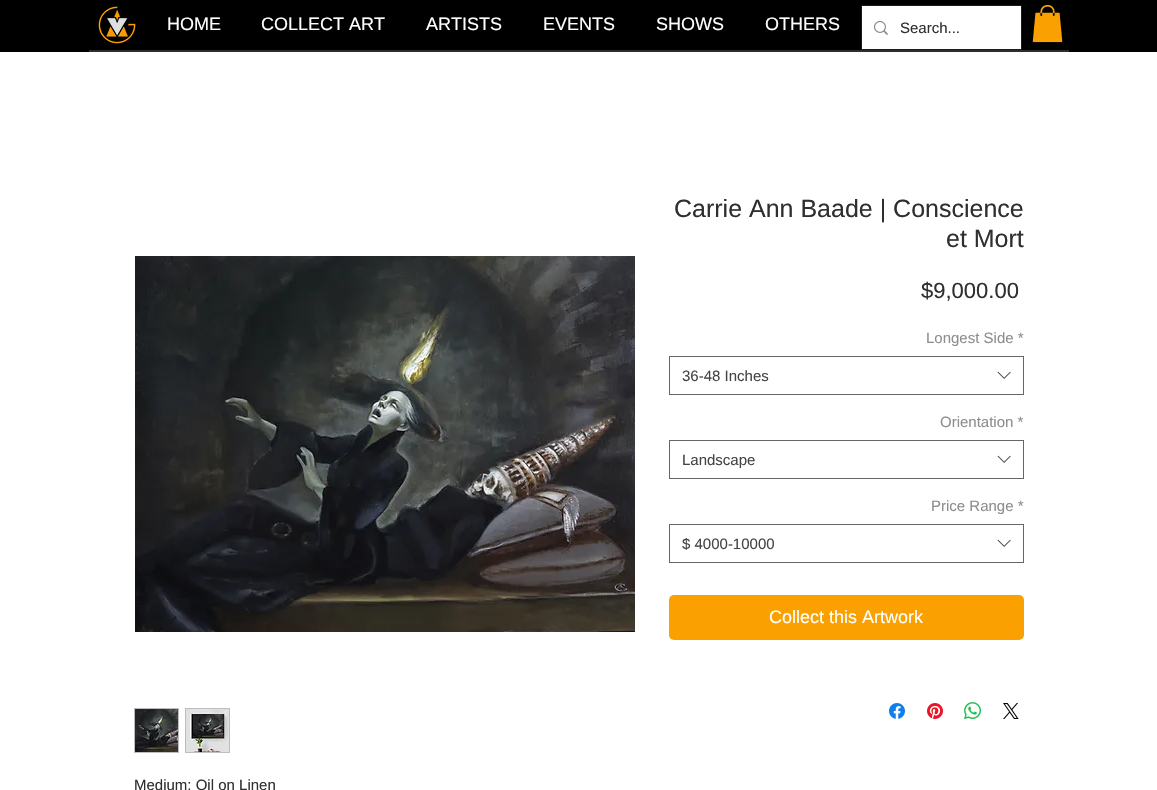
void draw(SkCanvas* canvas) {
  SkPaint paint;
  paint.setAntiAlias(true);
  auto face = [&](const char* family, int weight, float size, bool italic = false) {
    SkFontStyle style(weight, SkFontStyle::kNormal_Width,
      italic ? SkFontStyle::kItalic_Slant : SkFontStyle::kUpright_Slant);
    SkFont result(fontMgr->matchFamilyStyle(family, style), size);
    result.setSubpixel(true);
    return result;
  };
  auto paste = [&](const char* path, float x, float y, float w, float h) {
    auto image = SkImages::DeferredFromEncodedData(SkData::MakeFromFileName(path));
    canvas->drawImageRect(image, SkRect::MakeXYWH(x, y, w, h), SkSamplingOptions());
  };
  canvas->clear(0xffffffff);
  paint.setColor(0xff000000);
  canvas->drawRect(SkRect::MakeXYWH(0, 0, 1157, 52), paint);
  paste("img/1.png", 98, 6, 38, 38);
  paste("img/2.png", 1032, 5, 31, 38);
  paint.setStroke(true);
  paint.setStrokeWidth(1);
  paint.setColor(0xff1c1c1d);
  canvas->drawRect(SkRect::MakeXYWH(861.5f, 5.5f, 160, 44), paint);
  paint.setStroke(false);
  paint.setColor(0xffffffff);
  canvas->drawRect(SkRect::MakeXYWH(862, 6, 159, 43), paint);
  paste("img/3.png", 874, 21, 14, 14);
  paint.setColor(0xff2f2e2e);
  canvas->drawRect(SkRect::MakeXYWH(89, 50, 980, 2), paint);
  paint.setStroke(true);
  paint.setColor(0xff666666);
  canvas->drawRect(SkRect::MakeXYWH(669.5f, 356.5f, 354, 38), paint);
  paste("img/4.png", 997, 371, 14, 8);
  canvas->drawRect(SkRect::MakeXYWH(669.5f, 440.5f, 354, 38), paint);
  paste("img/4.png", 997, 455, 14, 8);
  canvas->drawRect(SkRect::MakeXYWH(669.5f, 524.5f, 354, 38), paint);
  paste("img/4.png", 997, 539, 14, 8);
  paint.setStroke(false);
  paint.setColor(0xfffaa000);
  canvas->drawRoundRect(SkRect::MakeXYWH(669, 595, 355, 45), 5, 5, paint);
  paste("img/5.png", 889, 703, 16, 16);
  paste("img/6.png", 927, 703, 16, 16);
  paste("img/7.png", 964, 702, 17, 17);
  paste("img/8.png", 1003, 703, 16, 16);
  paste("img/9.png", 135, 256, 500, 376);
  paint.setColor(0xffbebcc2);
  canvas->drawRect(SkRect::MakeXYWH(134, 708, 45, 45), paint);
  paste("img/10.png", 135, 709, 43, 43);
  canvas->drawRect(SkRect::MakeXYWH(185, 708, 45, 45), paint);
  paste("img/11.png", 186, 709, 43, 43);
  auto f0 = face("Liberation Sans", 400, 18);
  paint.setColor(0xffffffff);
  {
    const struct { const char* s; float x, y; } items[] = {
      {"HOME", 167, 30},
      {"COLLECT ART", 261, 30},
      {"ARTISTS", 426, 30},
      {"EVENTS", 543, 30},
      {"SHOWS", 656, 30},
      {"OTHERS", 765, 30},
    };
    for (auto [s, x, y] : items) {
      canvas->drawString(s, x, y, f0, paint);
    }
  }
  auto f1 = face("Liberation Sans", 400, 15);
  paint.setColor(0xff2f2f30);
  canvas->drawString("Search...", 900, 33, f1, paint);
  auto f2 = face("Liberation Sans", 400, 25);
  canvas->drawString("Carrie Ann Baade | Conscience", 674, 217, f2, paint);
  canvas->drawString("et Mort", 946, 247, f2, paint);
  auto f3 = face("Liberation Sans", 400, 22);
  canvas->drawString("$9,000.00", 921, 298, f3, paint);
  paint.setColor(0xff8e8d91);
  canvas->drawString("Longest Side *", 926, 343, f1, paint);
  paint.setColor(0xff444444);
  canvas->drawString("36-48 Inches", 682, 381, f1, paint);
  paint.setColor(0xff8e8d91);
  canvas->drawString("Orientation *", 940, 427, f1, paint);
  paint.setColor(0xff444444);
  canvas->drawString("Landscape", 682, 465, f1, paint);
  paint.setColor(0xff8e8d91);
  canvas->drawString("Price Range *", 931, 511, f1, paint);
  paint.setColor(0xff444444);
  canvas->drawString("$ 4000-10000", 682, 549, f1, paint);
  paint.setColor(0xffffffff);
  canvas->drawString("Collect this Artwork", 769, 623, f0, paint);
  paint.setColor(0xff2f2f30);
  canvas->drawString("Medium: Oil on Linen", 134, 790, f1, paint);
}
